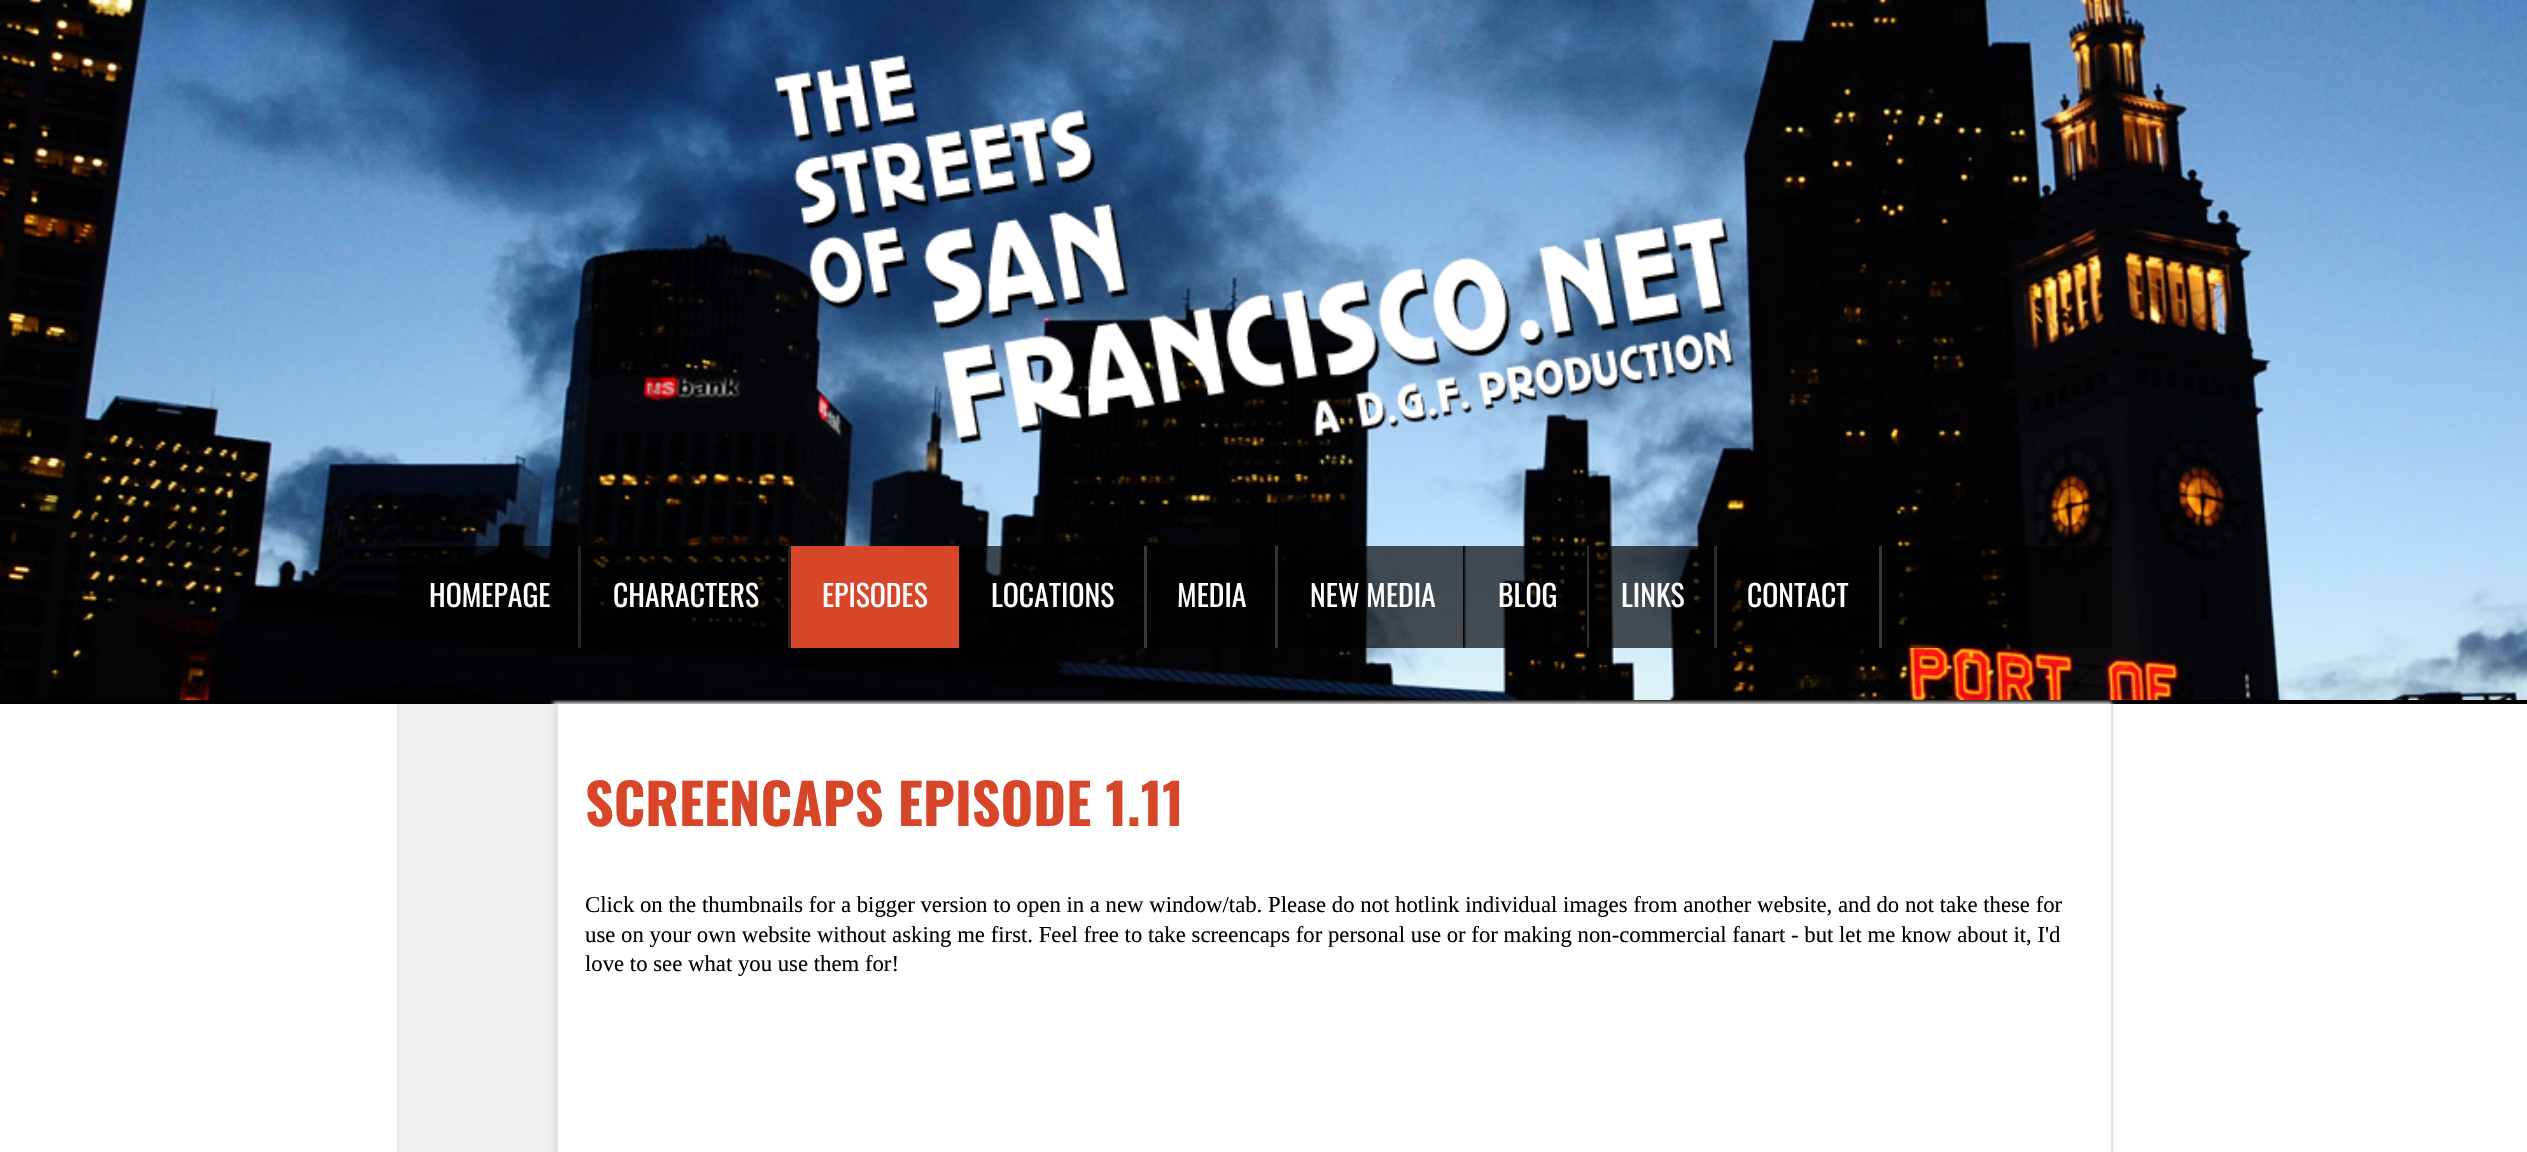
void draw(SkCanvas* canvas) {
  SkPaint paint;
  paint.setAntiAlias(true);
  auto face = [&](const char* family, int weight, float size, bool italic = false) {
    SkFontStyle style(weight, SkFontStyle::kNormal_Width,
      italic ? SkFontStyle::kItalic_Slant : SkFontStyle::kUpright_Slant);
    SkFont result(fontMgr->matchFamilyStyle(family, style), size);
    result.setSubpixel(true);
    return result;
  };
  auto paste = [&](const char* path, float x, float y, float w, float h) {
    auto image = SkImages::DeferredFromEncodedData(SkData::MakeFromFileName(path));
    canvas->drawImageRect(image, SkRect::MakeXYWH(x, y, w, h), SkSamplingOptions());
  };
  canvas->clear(0xffffffff);
  {
    const struct { float x, y, w, h; SkColor color; } items[] = {
      {0, 700, 2527, 4, 0xff000000},
      {2111, 704, 2, 448, 0xffe7e7e7},
      {399, 704, 159, 448, 0xffefefef},
    };
    for (auto [x, y, w, h, color] : items) {
      paint.setColor(color);
      canvas->drawRect(SkRect::MakeXYWH(x, y, w, h), paint);
    }
  }
  paint.setColor(0xffe2e3e4);
  paint.setMaskFilter(SkMaskFilter::MakeBlur(kNormal_SkBlurStyle, 2));
  canvas->drawRect(SkRect::MakeXYWH(553, 702, 1559, 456), paint);
  paint.setMaskFilter(nullptr);
  paste("img/1.png", 0, 0, 2527, 700);
  paste("img/2.png", 774, 55, 961, 390);
  {
    const struct { float x, y, w, h; SkColor color; } items[] = {
      {397, 546, 1715, 102, 0xad000000},
      {578, 546, 3, 102, 0xff252525},
      {788, 546, 3, 102, 0xff252525},
      {791, 546, 168, 102, 0xffd74629},
      {1144, 546, 3, 102, 0xff383838},
      {1275, 546, 3, 102, 0xff343434},
    };
    for (auto [x, y, w, h, color] : items) {
      paint.setColor(color);
      canvas->drawRect(SkRect::MakeXYWH(x, y, w, h), paint);
    }
  }
  paste("img/3.png", 1463, 546, 4, 102);
  paste("img/4.png", 1585, 546, 4, 102);
  {
    const struct { float x, y, w, h; SkColor color; } items[] = {
      {1714, 546, 3, 102, 0xff2c2c2c},
      {1879, 546, 3, 102, 0xff383838},
      {397, 704, 2, 448, 0xffe7e7e7},
      {558, 704, 1553, 448, 0xffffffff},
    };
    for (auto [x, y, w, h, color] : items) {
      paint.setColor(color);
      canvas->drawRect(SkRect::MakeXYWH(x, y, w, h), paint);
    }
  }
  auto f0 = face("Oswald", 400, 29.75f);
  {
    const struct { const char* s; float x, y; } items[] = {
      {"HOMEPAGE", 429, 607},
      {"CHARACTERS", 613, 607},
      {"EPISODES", 822, 607},
      {"LOCATIONS", 991, 607},
      {"MEDIA", 1177, 607},
      {"NEW MEDIA", 1310, 607},
      {"BLOG", 1498, 607},
      {"LINKS", 1621, 607},
      {"CONTACT", 1747, 607},
    };
    for (auto [s, x, y] : items) {
      canvas->drawString(s, x, y, f0, paint);
    }
  }
  auto f1 = face("Oswald", 700, 56);
  paint.setColor(0xffd74629);
  canvas->drawString("SCREENCAPS EPISODE 1.11", 585, 826, f1, paint);
  auto f2 = face("Liberation Serif", 400, 22.75f);
  paint.setColor(0xff000000);
  {
    const struct { const char* s; float x, y; } items[] = {
      {"Click on the thumbnails for a bigger version to open in a new window/tab. Please do not hotlink individual images from another website, and do not take these for", 585, 912},
      {"use on your own website without asking me first. Feel free to take screencaps for personal use or for making non-commercial fanart - but let me know about it, I'd", 585, 942},
      {"love to see what you use them for!", 585, 971},
    };
    for (auto [s, x, y] : items) {
      canvas->drawString(s, x, y, f2, paint);
    }
  }
}
